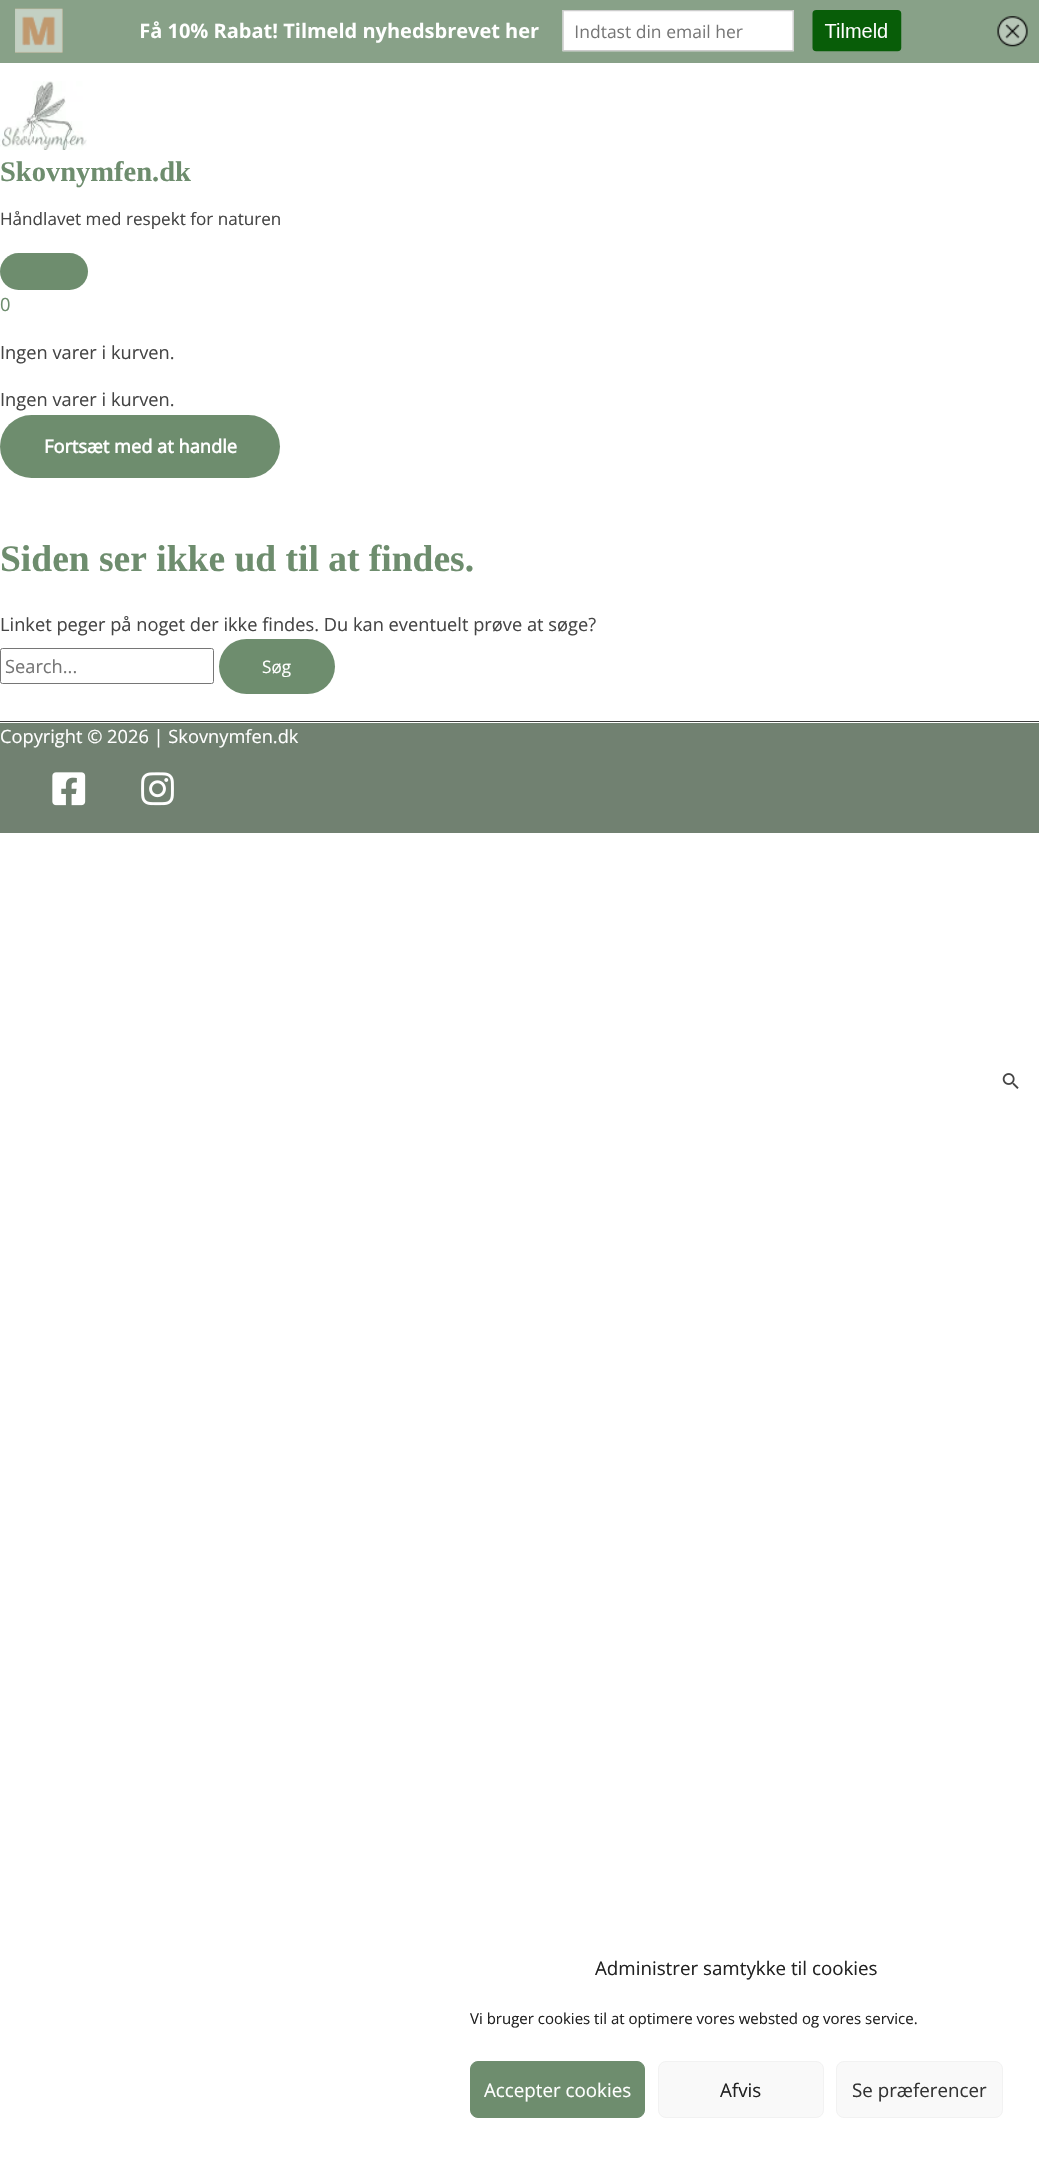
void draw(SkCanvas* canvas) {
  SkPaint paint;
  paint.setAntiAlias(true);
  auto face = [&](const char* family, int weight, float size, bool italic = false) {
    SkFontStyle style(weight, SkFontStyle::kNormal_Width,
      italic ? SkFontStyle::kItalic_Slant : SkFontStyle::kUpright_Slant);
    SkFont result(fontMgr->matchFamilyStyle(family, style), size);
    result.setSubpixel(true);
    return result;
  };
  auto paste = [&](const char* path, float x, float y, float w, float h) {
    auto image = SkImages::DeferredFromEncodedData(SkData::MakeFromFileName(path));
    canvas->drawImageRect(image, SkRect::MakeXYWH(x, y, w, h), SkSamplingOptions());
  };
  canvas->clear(0xffffffff);
  paste("img/1.png", 0, 0, 1039, 63);
  paste("img/2.png", 0, 81, 87, 69);
  paint.setColor(0xff6e8d6e);
  canvas->drawRoundRect(SkRect::MakeXYWH(0, 253, 88, 37), 18.5f, 18.5f, paint);
  canvas->drawRoundRect(SkRect::MakeXYWH(0, 415, 280, 63), 31.5f, 31.5f, paint);
  paint.setStroke(true);
  paint.setStrokeWidth(1);
  paint.setColor(0xff767676);
  canvas->drawRoundRect(SkRect::MakeXYWH(0.5f, 648.5f, 213, 35), 2, 2, paint);
  paint.setStroke(false);
  paint.setColor(0xff6e8d6e);
  canvas->drawRoundRect(SkRect::MakeXYWH(219, 639, 116, 55), 27.5f, 27.5f, paint);
  paste("img/3.png", 1002, 1073, 17, 16);
  paint.setColor(0xff3f3f3f);
  canvas->drawRect(SkRect::MakeXYWH(0, 721, 1039, 1), paint);
  paint.setColor(0xff718171);
  canvas->drawRect(SkRect::MakeXYWH(0, 723, 1039, 110), paint);
  paste("img/4.png", 52, 772, 34, 34);
  paste("img/5.png", 141, 772, 33, 34);
  paint.setColor(0xff6e8d6e);
  canvas->drawRoundRect(SkRect::MakeXYWH(470.5f, 2061.5f, 174, 56), 7.5f, 7.5f, paint);
  paint.setStroke(true);
  canvas->drawRoundRect(SkRect::MakeXYWH(470.5f, 2061.5f, 174, 56), 7.5f, 7.5f, paint);
  paint.setStroke(false);
  paint.setColor(0xfff9f9f9);
  canvas->drawRoundRect(SkRect::MakeXYWH(658.5f, 2061.5f, 165, 56), 7.5f, 7.5f, paint);
  paint.setStroke(true);
  paint.setColor(0xfff2f2f2);
  canvas->drawRoundRect(SkRect::MakeXYWH(658.5f, 2061.5f, 165, 56), 7.5f, 7.5f, paint);
  paint.setStroke(false);
  paint.setColor(0xfff9f9f9);
  canvas->drawRoundRect(SkRect::MakeXYWH(836.5f, 2061.5f, 166, 56), 7.5f, 7.5f, paint);
  paint.setStroke(true);
  paint.setColor(0xfff2f2f2);
  canvas->drawRoundRect(SkRect::MakeXYWH(836.5f, 2061.5f, 166, 56), 7.5f, 7.5f, paint);
  auto f0 = face("Liberation Serif", 700, 28.5f);
  paint.setStroke(false);
  paint.setColor(0xff6e8d6e);
  canvas->drawString("Skovnymfen.dk", 0, 181, f0, paint);
  auto f1 = face("Open Sans", 400, 17.1f);
  paint.setColor(0xff454545);
  canvas->drawString("Håndlavet med respekt for naturen", 0, 225, f1, paint);
  auto f2 = face("Open Sans", 400, 18.25f);
  paint.setColor(0xff6e8d6e);
  canvas->drawString("0", 0, 311, f2, paint);
  paint.setColor(0xff454545);
  canvas->drawString("Ingen varer i kurven.", 0, 359, f2, paint);
  canvas->drawString("Ingen varer i kurven.", 0, 406, f2, paint);
  auto f3 = face("Open Sans", 700, 18.25f);
  paint.setColor(0xffffffff);
  canvas->drawString("Fortsæt med at handle", 44, 453, f3, paint);
  auto f4 = face("Liberation Serif", 700, 37.5f);
  paint.setColor(0xff6e8d6e);
  canvas->drawString("Siden ser ikke ud til at findes.", 0, 571, f4, paint);
  paint.setColor(0xff454545);
  canvas->drawString("Linket peger på noget der ikke findes. Du kan eventuelt prøve at søge?", 0, 631, f2, paint);
  paint.setColor(0xff757575);
  canvas->drawString("Search...", 5, 673, f2, paint);
  paint.setColor(0xffffffff);
  canvas->drawString("Søg", 262, 673, f1, paint);
  canvas->drawString("Copyright © 2026 | Skovnymfen.dk", 0, 743, f2, paint);
  auto f5 = face("Open Sans", 400, 18.75f);
  paint.setColor(0xff222222);
  canvas->drawString("Administrer samtykke til cookies", 595, 1975, f5, paint);
  auto f6 = face("Open Sans", 400, 15);
  canvas->drawString("Vi bruger cookies til at optimere vores websted og vores service.", 470, 2024, f6, paint);
  paint.setColor(0xffffffff);
  canvas->drawString("Accepter cookies", 484, 2097, f5, paint);
  paint.setColor(0xff222222);
  canvas->drawString("Afvis", 720, 2097, f5, paint);
  paint.setColor(0xff333333);
  canvas->drawString("Se præferencer", 852, 2097, f5, paint);
}
